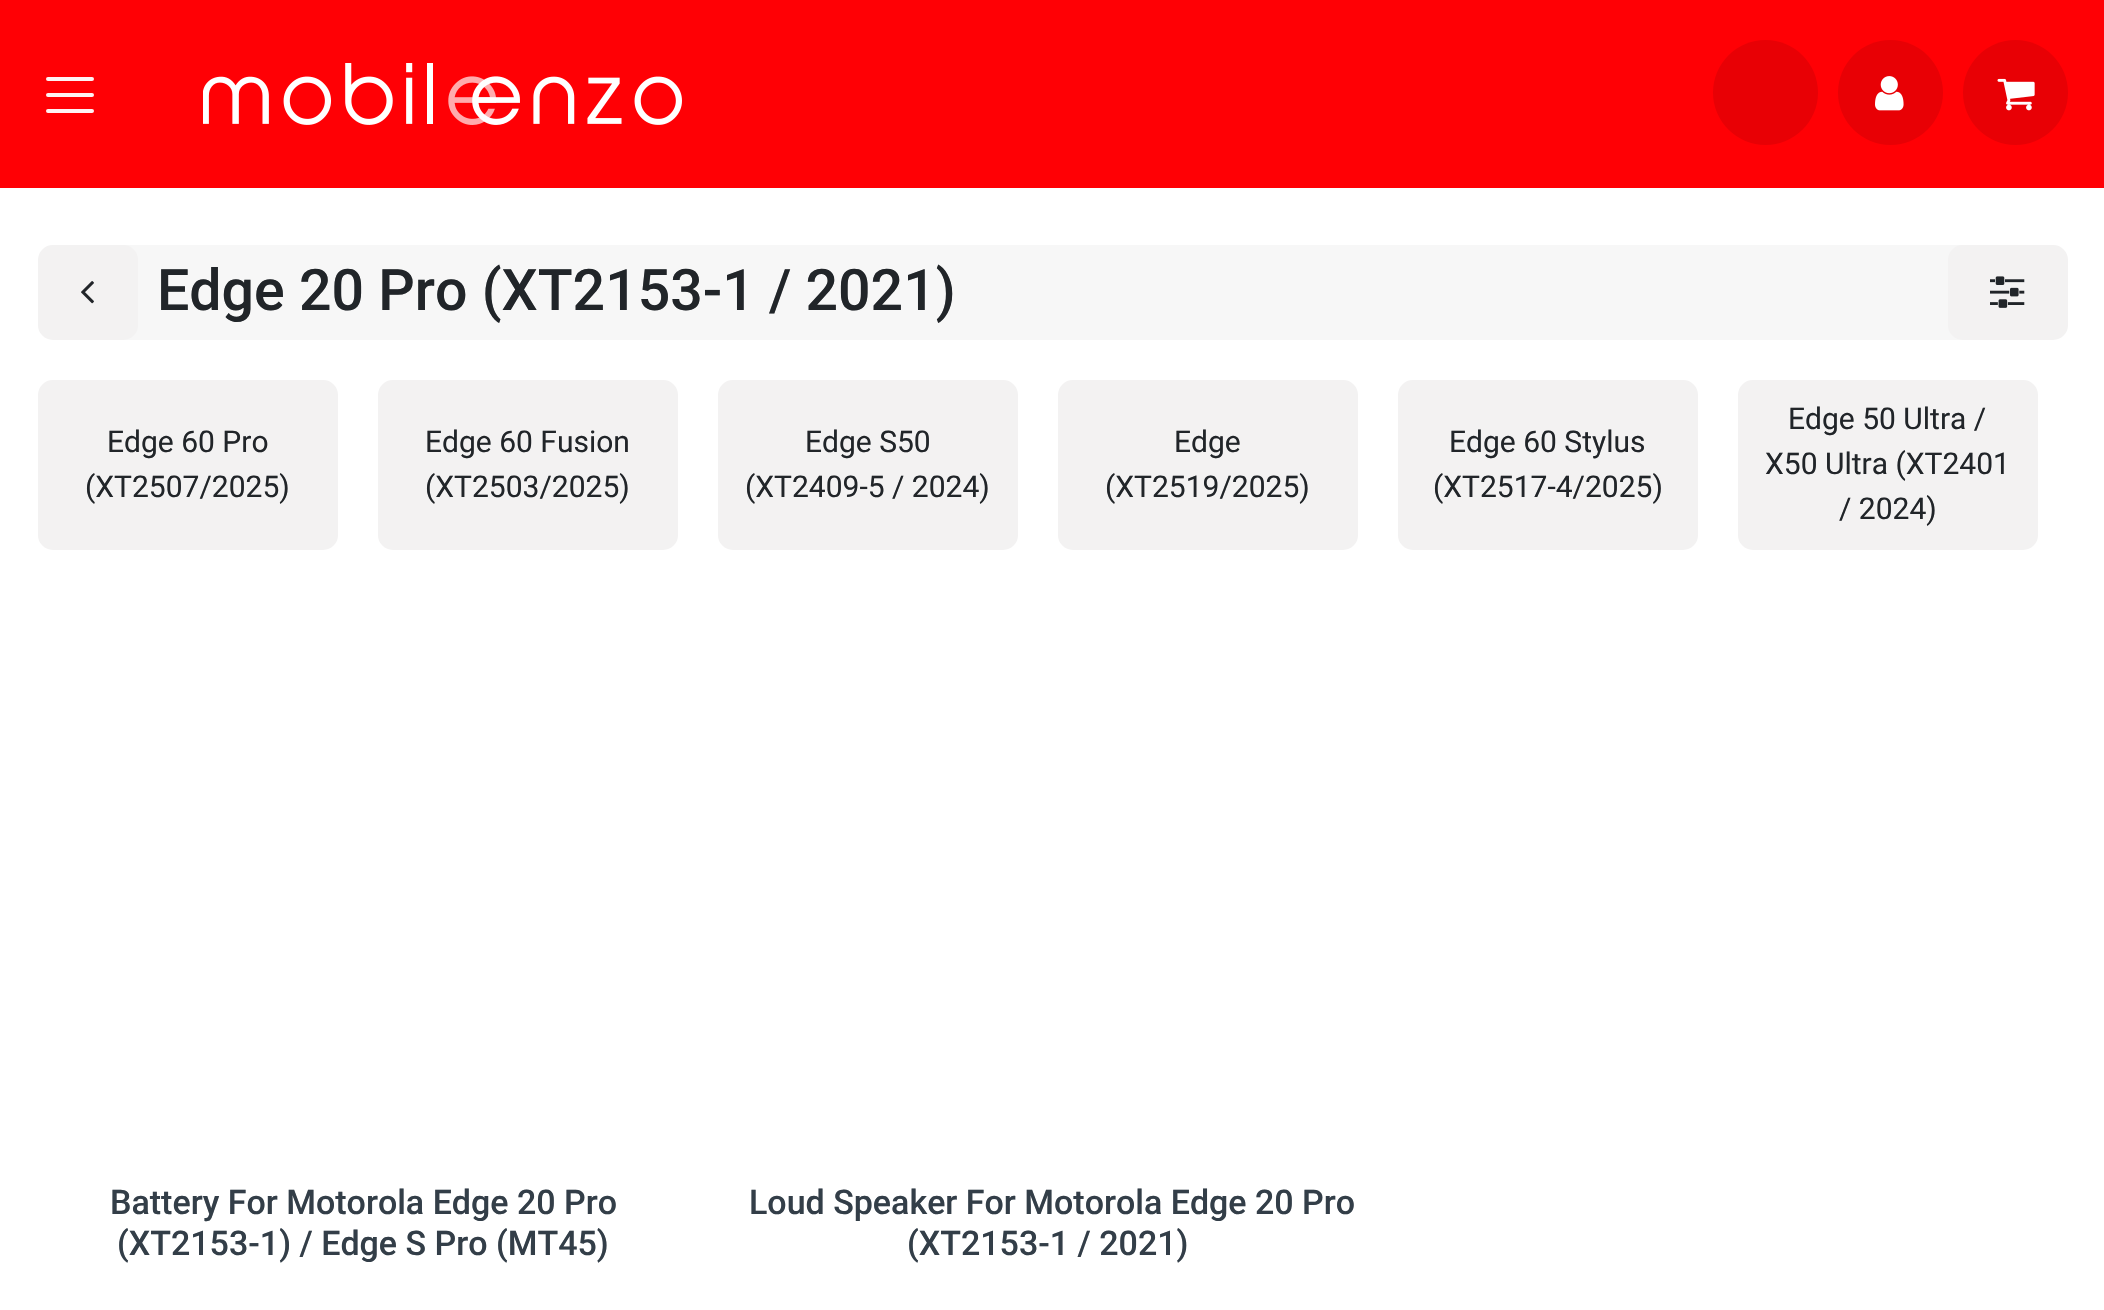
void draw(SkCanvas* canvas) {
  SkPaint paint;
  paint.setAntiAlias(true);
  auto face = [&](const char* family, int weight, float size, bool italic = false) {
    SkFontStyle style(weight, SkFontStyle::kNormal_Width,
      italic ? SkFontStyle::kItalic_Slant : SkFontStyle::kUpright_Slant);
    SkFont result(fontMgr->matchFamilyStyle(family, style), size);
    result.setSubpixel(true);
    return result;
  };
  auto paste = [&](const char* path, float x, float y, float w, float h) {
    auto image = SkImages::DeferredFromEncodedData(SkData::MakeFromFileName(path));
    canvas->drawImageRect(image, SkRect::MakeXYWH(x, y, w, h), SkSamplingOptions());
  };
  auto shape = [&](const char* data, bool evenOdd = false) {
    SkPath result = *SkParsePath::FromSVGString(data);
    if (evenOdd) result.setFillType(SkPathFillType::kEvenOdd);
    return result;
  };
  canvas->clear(0xffffffff);
  paint.setColor(0xffff0005);
  canvas->drawRect(SkRect::MakeXYWH(0, 0, 2104, 188), paint);
  paint.setStroke(true);
  paint.setStrokeWidth(4);
  paint.setStrokeCap(SkPaint::kRound_Cap);
  paint.setColor(0xfffff2f3);
  canvas->drawPath(shape("M48 79H92M48 95H92M48 111H92"), paint);
  paste("img/1.png", 203, 63, 479, 62);
  paint.setStroke(false);
  paint.setColor(0xffe80005);
  canvas->drawCircle(1765.5f, 92.5f, 52.5f, paint);
  canvas->drawCircle(1890.5f, 92.5f, 52.5f, paint);
  paste("img/2.png", 1875, 76, 29, 35);
  canvas->drawCircle(2015.5f, 92.5f, 52.5f, paint);
  paste("img/3.png", 1997, 78, 38, 33);
  paint.setColor(0xfff7f7f7);
  canvas->drawRoundRect(SkRect::MakeXYWH(38, 245, 2030, 95), 23, 23, paint);
  paint.setColor(0xfff3f2f2);
  canvas->drawRoundRect(SkRect::MakeXYWH(39.5f, 246.5f, 97, 92), 13.5f, 13.5f, paint);
  paint.setStroke(true);
  paint.setStrokeWidth(3);
  paint.setStrokeCap(SkPaint::kButt_Cap);
  canvas->drawRoundRect(SkRect::MakeXYWH(39.5f, 246.5f, 97, 92), 13.5f, 13.5f, paint);
  paste("img/4.png", 81, 281, 13, 23);
  paint.setStroke(false);
  canvas->drawRoundRect(SkRect::MakeXYWH(1949.5f, 246.5f, 117, 92), 13.5f, 13.5f, paint);
  paint.setStroke(true);
  canvas->drawRoundRect(SkRect::MakeXYWH(1949.5f, 246.5f, 117, 92), 13.5f, 13.5f, paint);
  paste("img/5.png", 1990, 276, 35, 32);
  paint.setStroke(false);
  canvas->drawRoundRect(SkRect::MakeXYWH(39.5f, 381.5f, 297, 167), 13.5f, 13.5f, paint);
  paint.setStroke(true);
  canvas->drawRoundRect(SkRect::MakeXYWH(39.5f, 381.5f, 297, 167), 13.5f, 13.5f, paint);
  paint.setStroke(false);
  canvas->drawRoundRect(SkRect::MakeXYWH(379.5f, 381.5f, 297, 167), 13.5f, 13.5f, paint);
  paint.setStroke(true);
  canvas->drawRoundRect(SkRect::MakeXYWH(379.5f, 381.5f, 297, 167), 13.5f, 13.5f, paint);
  paint.setStroke(false);
  canvas->drawRoundRect(SkRect::MakeXYWH(719.5f, 381.5f, 297, 167), 13.5f, 13.5f, paint);
  paint.setStroke(true);
  canvas->drawRoundRect(SkRect::MakeXYWH(719.5f, 381.5f, 297, 167), 13.5f, 13.5f, paint);
  paint.setStroke(false);
  canvas->drawRoundRect(SkRect::MakeXYWH(1059.5f, 381.5f, 297, 167), 13.5f, 13.5f, paint);
  paint.setStroke(true);
  canvas->drawRoundRect(SkRect::MakeXYWH(1059.5f, 381.5f, 297, 167), 13.5f, 13.5f, paint);
  paint.setStroke(false);
  canvas->drawRoundRect(SkRect::MakeXYWH(1399.5f, 381.5f, 297, 167), 13.5f, 13.5f, paint);
  paint.setStroke(true);
  canvas->drawRoundRect(SkRect::MakeXYWH(1399.5f, 381.5f, 297, 167), 13.5f, 13.5f, paint);
  paint.setStroke(false);
  canvas->drawRoundRect(SkRect::MakeXYWH(1739.5f, 381.5f, 297, 167), 13.5f, 13.5f, paint);
  paint.setStroke(true);
  canvas->drawRoundRect(SkRect::MakeXYWH(1739.5f, 381.5f, 297, 167), 13.5f, 13.5f, paint);
  auto f0 = face("Roboto", 500, 57.25f);
  paint.setStroke(false);
  paint.setColor(0xff212529);
  canvas->drawString("Edge 20 Pro (XT2153-1 / 2021)", 157, 310, f0, paint);
  auto f1 = face("Roboto", 400, 30);
  {
    const struct { const char* s; float x, y; } items[] = {
      {"Edge 60 Pro", 107, 452},
      {"(XT2507/2025)", 85, 497},
      {"Edge 60 Fusion", 425, 452},
      {"(XT2503/2025)", 425, 497},
      {"Edge S50", 805, 452},
      {"(XT2409-5 / 2024)", 745, 497},
      {"Edge", 1174, 452},
      {"(XT2519/2025)", 1105, 497},
      {"Edge 60 Stylus", 1449, 452},
      {"(XT2517-4/2025)", 1433, 497},
      {"Edge 50 Ultra /", 1788, 429},
      {"X50 Ultra (XT2401", 1765, 474},
      {"/ 2024)", 1839, 519},
    };
    for (auto [s, x, y] : items) {
      canvas->drawString(s, x, y, f1, paint);
    }
  }
  auto f2 = face("Roboto", 500, 34);
  paint.setColor(0xff333e48);
  {
    const struct { const char* s; float x, y; } items[] = {
      {"Battery For Motorola Edge 20 Pro", 110, 1214},
      {"(XT2153-1) / Edge S Pro (MT45)", 117, 1255},
      {"Loud Speaker For Motorola Edge 20 Pro", 749, 1214},
      {"(XT2153-1 / 2021)", 907, 1255},
    };
    for (auto [s, x, y] : items) {
      canvas->drawString(s, x, y, f2, paint);
    }
  }
}
